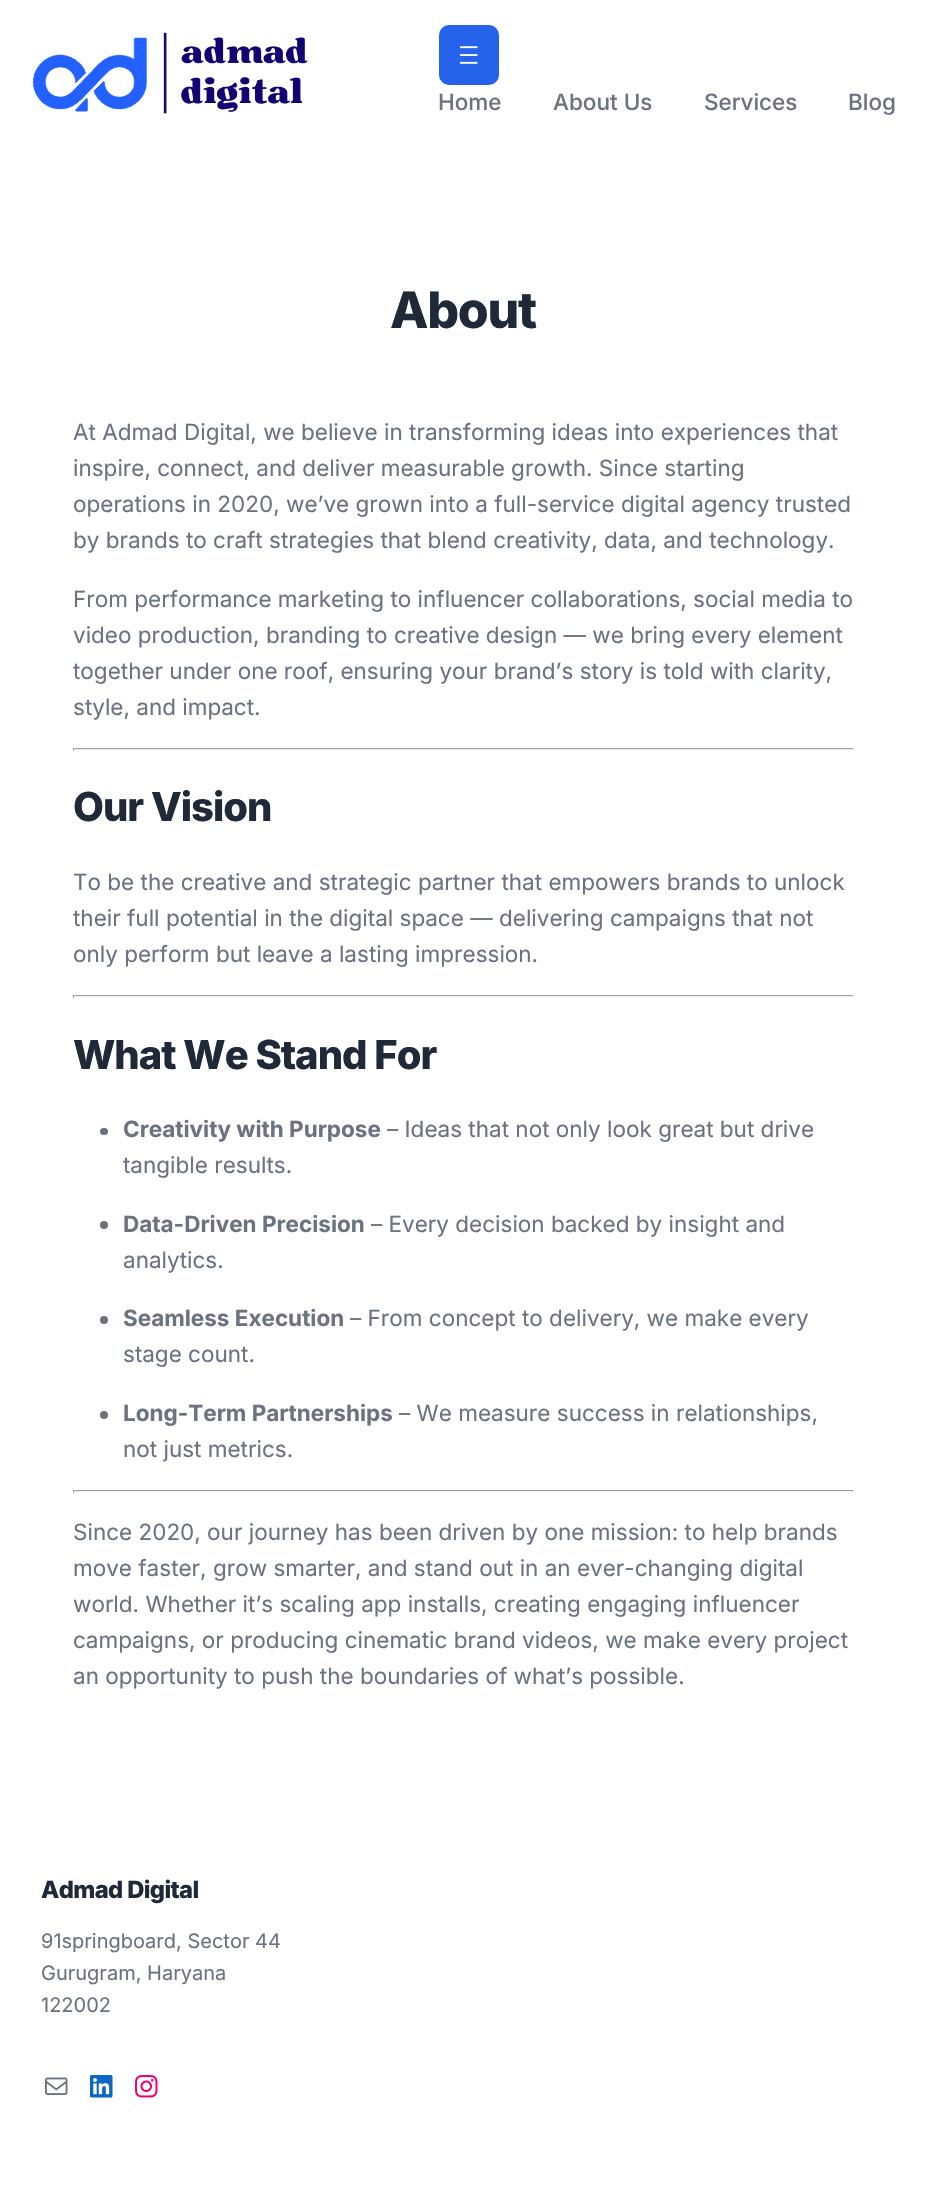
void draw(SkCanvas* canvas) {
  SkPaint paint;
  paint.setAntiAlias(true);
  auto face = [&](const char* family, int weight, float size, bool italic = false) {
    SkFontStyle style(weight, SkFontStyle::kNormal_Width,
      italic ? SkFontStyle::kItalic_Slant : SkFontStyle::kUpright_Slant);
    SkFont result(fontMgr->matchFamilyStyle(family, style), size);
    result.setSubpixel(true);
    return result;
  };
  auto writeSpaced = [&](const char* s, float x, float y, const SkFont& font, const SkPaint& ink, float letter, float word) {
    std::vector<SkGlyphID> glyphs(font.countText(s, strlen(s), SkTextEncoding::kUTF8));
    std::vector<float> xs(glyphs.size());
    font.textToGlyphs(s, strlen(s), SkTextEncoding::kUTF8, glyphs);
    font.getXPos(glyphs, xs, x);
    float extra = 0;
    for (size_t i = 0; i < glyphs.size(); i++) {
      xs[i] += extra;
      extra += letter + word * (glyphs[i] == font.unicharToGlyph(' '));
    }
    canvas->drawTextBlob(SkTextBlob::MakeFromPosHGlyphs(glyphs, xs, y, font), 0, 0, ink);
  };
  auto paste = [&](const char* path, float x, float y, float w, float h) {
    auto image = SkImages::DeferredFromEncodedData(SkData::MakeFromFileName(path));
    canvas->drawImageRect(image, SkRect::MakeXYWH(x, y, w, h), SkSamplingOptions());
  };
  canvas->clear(0xffffffff);
  paste("img/1.png", 32, 32, 276, 82);
  paint.setColor(0xff2563eb);
  canvas->drawRoundRect(SkRect::MakeXYWH(439, 25, 60, 60), 10, 10, paint);
  paste("img/2.png", 460, 46, 18, 18);
  {
    const struct { float x, y, w, h; SkColor color; } items[] = {
      {73, 748, 781, 1, 0xff9f9f9f},
      {853, 748, 1, 3, 0xffeeeeee},
      {73, 749, 781, 1, 0xffeeeeee},
      {73, 748, 1, 3, 0xff9f9f9f},
      {73, 995, 781, 1, 0xff9f9f9f},
      {853, 995, 1, 3, 0xffeeeeee},
      {73, 996, 781, 1, 0xffeeeeee},
      {73, 995, 1, 3, 0xff9f9f9f},
    };
    for (auto [x, y, w, h, color] : items) {
      paint.setColor(color);
      canvas->drawRect(SkRect::MakeXYWH(x, y, w, h), paint);
    }
  }
  paint.setColor(0xff6b7280);
  canvas->drawRoundRect(SkRect::MakeXYWH(100, 1128, 8, 7), 3.5f, 3.5f, paint);
  canvas->drawCircle(104, 1225, 4, paint);
  canvas->drawCircle(104, 1320, 4, paint);
  canvas->drawCircle(104, 1415, 4, paint);
  {
    const struct { float x, y, w, h; SkColor color; } items[] = {
      {73, 1490, 781, 1, 0xff9f9f9f},
      {853, 1490, 1, 3, 0xffeeeeee},
      {73, 1491, 781, 1, 0xffeeeeee},
      {73, 1490, 1, 3, 0xff9f9f9f},
    };
    for (auto [x, y, w, h, color] : items) {
      paint.setColor(color);
      canvas->drawRect(SkRect::MakeXYWH(x, y, w, h), paint);
    }
  }
  paste("img/3.png", 45, 2077, 23, 18);
  paste("img/4.png", 90, 2075, 23, 23);
  paste("img/5.png", 135, 2075, 23, 23);
  auto f0 = face("Inter", 500, 22.5f);
  paint.setColor(0xff6b7280);
  {
    const struct { const char* s; float x, y; } items[] = {
      {"Home", 438, 110},
      {"About Us", 553, 110},
      {"Services", 704, 110},
      {"Blog", 848, 110},
    };
    for (auto [s, x, y] : items) {
      canvas->drawString(s, x, y, f0, paint);
    }
  }
  auto f1 = face("Inter", 800, 50);
  paint.setColor(0xff1f2937);
  writeSpaced("About", 390, 328, f1, paint, -1.25f, 0);
  auto f2 = face("Inter", 400, 22.5f);
  paint.setColor(0xff6b7280);
  {
    const struct { const char* s; float x, y; } items[] = {
      {"At Admad Digital, we believe in transforming ideas into experiences that", 73, 440},
      {"inspire, connect, and deliver measurable growth. Since starting", 73, 476},
      {"operations in 2020, we’ve grown into a full-service digital agency trusted", 73, 512},
      {"by brands to craft strategies that blend creativity, data, and technology.", 73, 548},
      {"From performance marketing to influencer collaborations, social media to", 73, 607},
      {"video production, branding to creative design — we bring every element", 73, 643},
      {"together under one roof, ensuring your brand’s story is told with clarity,", 73, 679},
      {"style, and impact.", 73, 715},
    };
    for (auto [s, x, y] : items) {
      canvas->drawString(s, x, y, f2, paint);
    }
  }
  auto f3 = face("Inter", 800, 40);
  paint.setColor(0xff1f2937);
  writeSpaced("Our Vision", 73, 821, f3, paint, -1, 0);
  paint.setColor(0xff6b7280);
  {
    const struct { const char* s; float x, y; } items[] = {
      {"To be the creative and strategic partner that empowers brands to unlock", 73, 890},
      {"their full potential in the digital space — delivering campaigns that not", 73, 926},
      {"only perform but leave a lasting impression.", 73, 962},
    };
    for (auto [s, x, y] : items) {
      canvas->drawString(s, x, y, f2, paint);
    }
  }
  paint.setColor(0xff1f2937);
  writeSpaced("What We Stand For", 73, 1069, f3, paint, -1, 0);
  auto f4 = face("Inter", 700, 22.5f);
  paint.setColor(0xff6b7280);
  canvas->drawString("Creativity with Purpose", 123, 1137, f4, paint);
  canvas->drawString("– Ideas that not only look great but drive", 387, 1137, f2, paint);
  canvas->drawString("tangible results.", 123, 1173, f2, paint);
  canvas->drawString("Data-Driven Precision", 123, 1232, f4, paint);
  canvas->drawString("– Every decision backed by insight and", 371, 1232, f2, paint);
  canvas->drawString("analytics.", 123, 1268, f2, paint);
  canvas->drawString("Seamless Execution", 123, 1326, f4, paint);
  canvas->drawString("– From concept to delivery, we make every", 350, 1326, f2, paint);
  canvas->drawString("stage count.", 123, 1362, f2, paint);
  canvas->drawString("Long-Term Partnerships", 123, 1421, f4, paint);
  {
    const struct { const char* s; float x, y; } items[] = {
      {"– We measure success in relationships,", 399, 1421},
      {"not just metrics.", 123, 1457},
      {"Since 2020, our journey has been driven by one mission: to help brands", 73, 1540},
      {"move faster, grow smarter, and stand out in an ever-changing digital", 73, 1576},
      {"world. Whether it’s scaling app installs, creating engaging influencer", 73, 1612},
      {"campaigns, or producing cinematic brand videos, we make every project", 73, 1648},
      {"an opportunity to push the boundaries of what’s possible.", 73, 1684},
    };
    for (auto [s, x, y] : items) {
      canvas->drawString(s, x, y, f2, paint);
    }
  }
  auto f5 = face("Inter", 800, 23.75f);
  paint.setColor(0xff1f2937);
  writeSpaced("Admad Digital", 41, 1898, f5, paint, -0.6f, 0);
  auto f6 = face("Inter", 400, 20);
  paint.setColor(0xff6b7280);
  {
    const struct { const char* s; float x, y; } items[] = {
      {"91springboard, Sector 44", 41, 1948},
      {"Gurugram, Haryana", 41, 1980},
      {"122002", 41, 2012},
    };
    for (auto [s, x, y] : items) {
      canvas->drawString(s, x, y, f6, paint);
    }
  }
}
